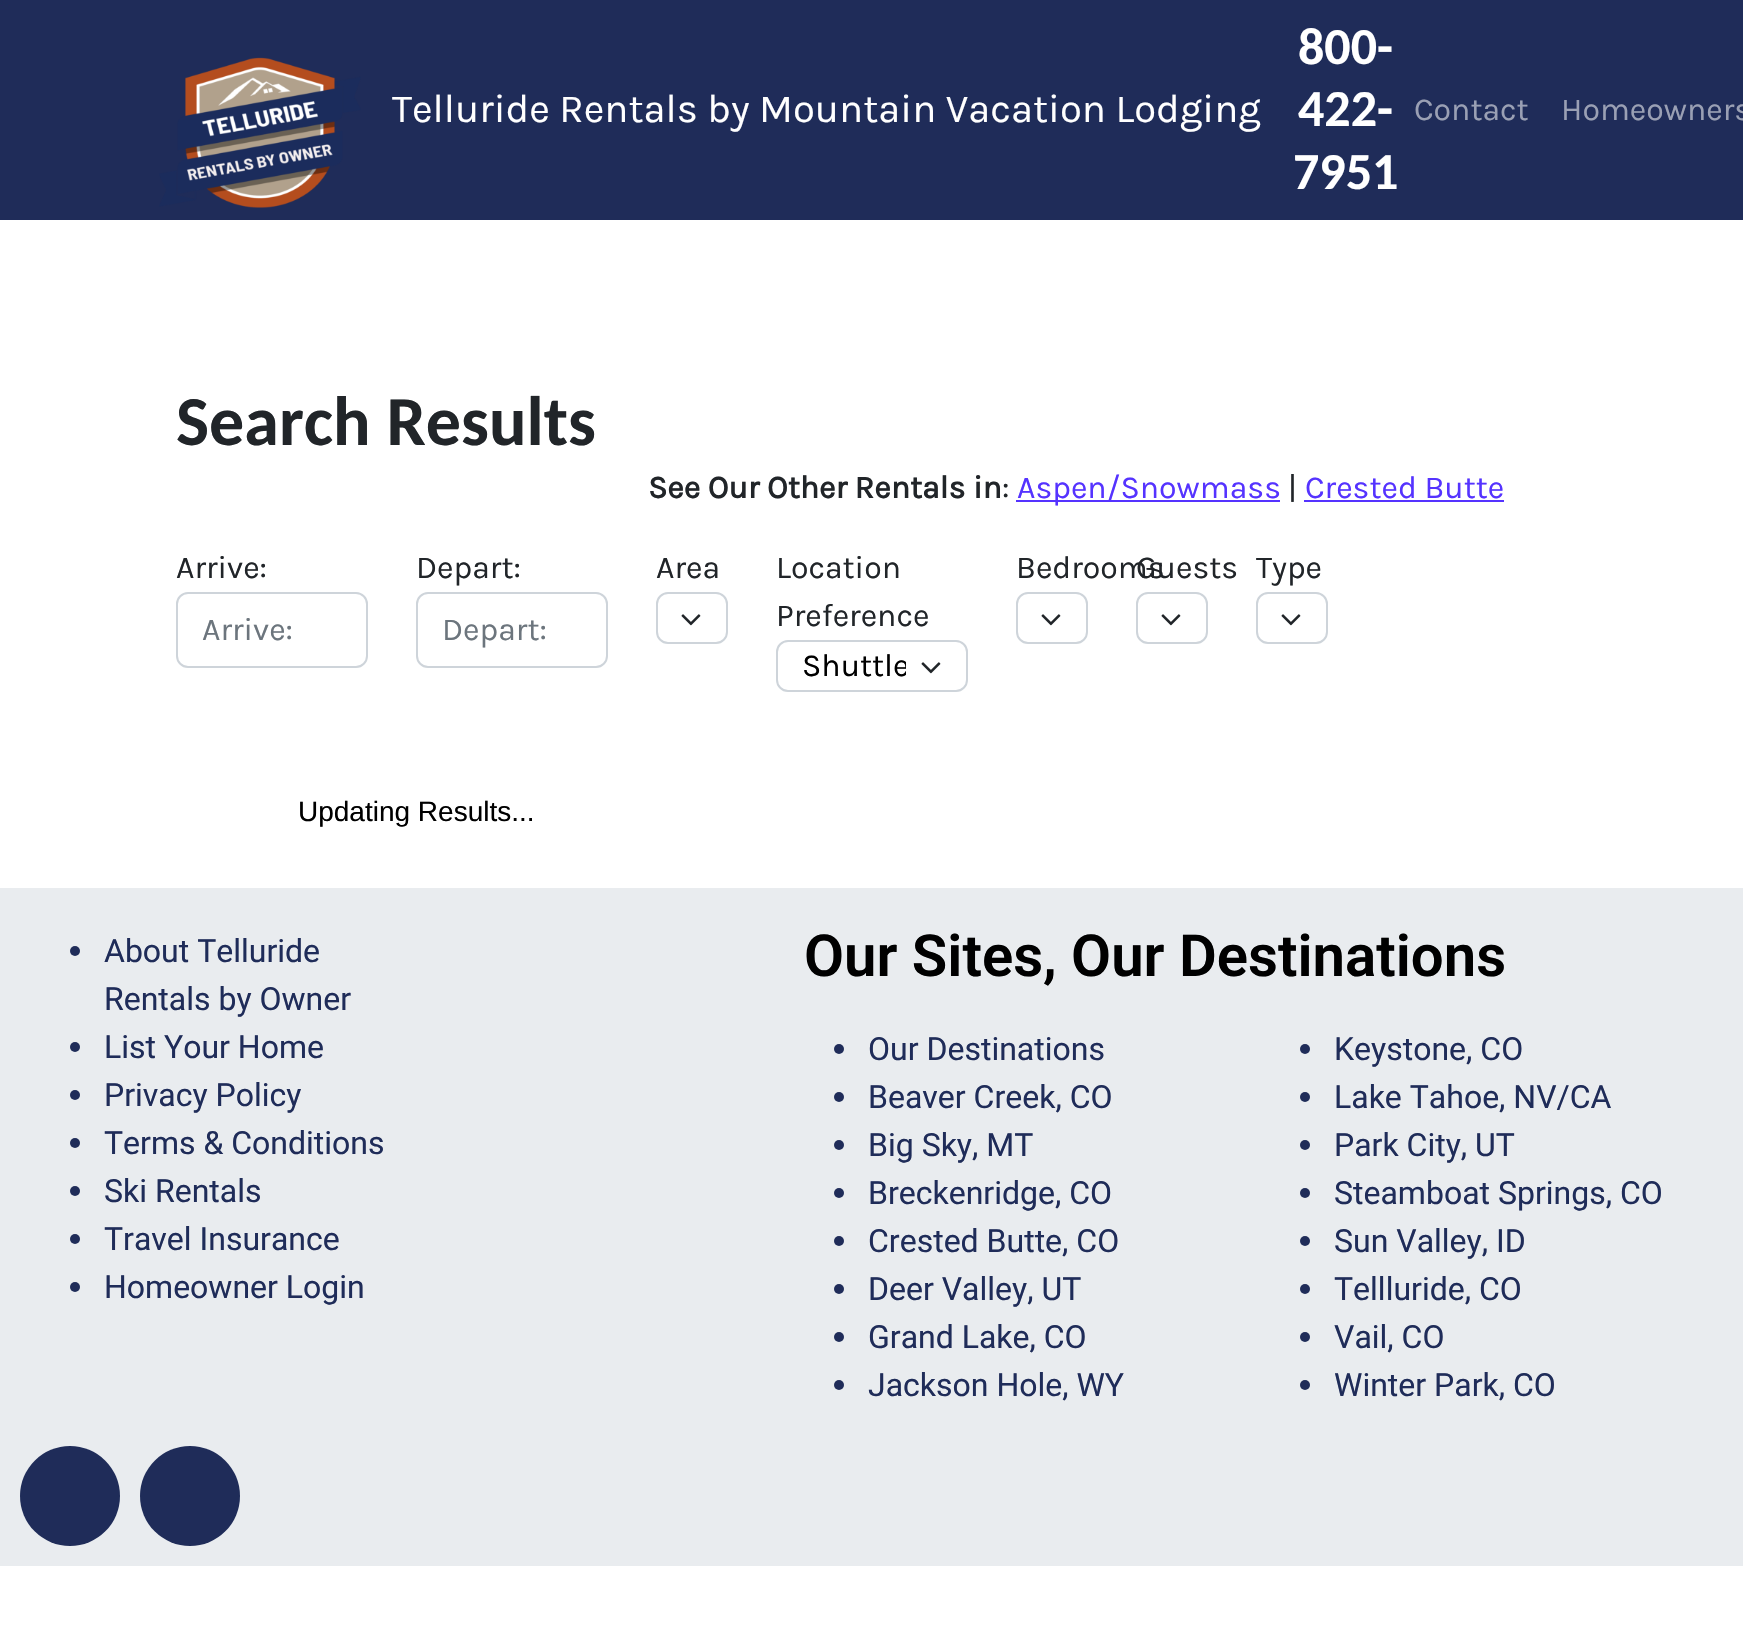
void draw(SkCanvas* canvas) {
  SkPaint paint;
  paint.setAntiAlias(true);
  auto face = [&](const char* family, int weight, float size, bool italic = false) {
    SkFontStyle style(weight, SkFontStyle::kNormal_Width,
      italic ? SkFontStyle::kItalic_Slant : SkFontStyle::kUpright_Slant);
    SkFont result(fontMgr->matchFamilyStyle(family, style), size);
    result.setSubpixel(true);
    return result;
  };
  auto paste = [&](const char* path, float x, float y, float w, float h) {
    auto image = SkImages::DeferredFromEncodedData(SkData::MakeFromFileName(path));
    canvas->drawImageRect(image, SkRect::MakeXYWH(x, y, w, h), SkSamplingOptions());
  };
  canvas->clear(0xffffffff);
  paint.setColor(0xff1f2c59);
  canvas->drawRect(SkRect::MakeXYWH(0, 0, 1743, 220), paint);
  paste("img/1.png", 159, 57, 202, 151);
  paint.setColor(0xff5533ff);
  canvas->drawRect(SkRect::MakeXYWH(1016, 500, 264, 2), paint);
  canvas->drawRect(SkRect::MakeXYWH(1304, 500, 200, 2), paint);
  paint.setStroke(true);
  paint.setStrokeWidth(2);
  paint.setColor(0xffced4da);
  canvas->drawRoundRect(SkRect::MakeXYWH(177, 593, 190, 74), 11, 11, paint);
  canvas->drawRoundRect(SkRect::MakeXYWH(417, 593, 190, 74), 11, 11, paint);
  canvas->drawRoundRect(SkRect::MakeXYWH(657, 593, 70, 50), 11, 11, paint);
  paste("img/2.png", 681, 614, 20, 12);
  canvas->drawRoundRect(SkRect::MakeXYWH(777, 641, 190, 50), 11, 11, paint);
  paste("img/2.png", 921, 662, 20, 12);
  canvas->drawRoundRect(SkRect::MakeXYWH(1017, 593, 70, 50), 11, 11, paint);
  paste("img/2.png", 1041, 614, 20, 12);
  canvas->drawRoundRect(SkRect::MakeXYWH(1137, 593, 70, 50), 11, 11, paint);
  paste("img/2.png", 1161, 614, 20, 12);
  canvas->drawRoundRect(SkRect::MakeXYWH(1257, 593, 70, 50), 11, 11, paint);
  paste("img/2.png", 1281, 614, 20, 12);
  paint.setStroke(false);
  paint.setColor(0xffe9ecef);
  canvas->drawRect(SkRect::MakeXYWH(0, 888, 1743, 678), paint);
  paint.setColor(0xff1f2c59);
  canvas->drawCircle(75, 951, 5, paint);
  canvas->drawCircle(75, 1047, 5, paint);
  canvas->drawCircle(75, 1095, 5, paint);
  canvas->drawCircle(75, 1143, 5, paint);
  canvas->drawCircle(75, 1191, 5, paint);
  canvas->drawCircle(75, 1239, 5, paint);
  canvas->drawCircle(75, 1287, 5, paint);
  canvas->drawCircle(839, 1049, 5, paint);
  canvas->drawCircle(1305, 1049, 5, paint);
  canvas->drawCircle(839, 1097, 5, paint);
  canvas->drawCircle(1305, 1097, 5, paint);
  canvas->drawCircle(839, 1145, 5, paint);
  canvas->drawCircle(1305, 1145, 5, paint);
  canvas->drawCircle(839, 1193, 5, paint);
  canvas->drawCircle(1305, 1193, 5, paint);
  canvas->drawCircle(839, 1241, 5, paint);
  canvas->drawCircle(1305, 1241, 5, paint);
  canvas->drawCircle(839, 1289, 5, paint);
  canvas->drawCircle(1305, 1289, 5, paint);
  canvas->drawCircle(839, 1337, 5, paint);
  canvas->drawCircle(1305, 1337, 5, paint);
  canvas->drawCircle(839, 1385, 5, paint);
  canvas->drawCircle(1305, 1385, 5, paint);
  canvas->drawCircle(70, 1496, 50, paint);
  canvas->drawCircle(190, 1496, 50, paint);
  auto f0 = face("Karla", 400, 40);
  paint.setColor(0xffffffff);
  canvas->drawString("Telluride Rentals by Mountain Vacation Lodging", 392, 122, f0, paint);
  auto f1 = face("Carlito", 700, 52);
  {
    const struct { const char* s; float x, y; } items[] = {
      {"800-", 1298, 64},
      {"422-", 1298, 126},
      {"7951", 1293, 189},
    };
    for (auto [s, x, y] : items) {
      canvas->drawString(s, x, y, f1, paint);
    }
  }
  auto f2 = face("Karla", 400, 32);
  paint.setColor(0xff9aa0b4);
  canvas->drawString("Contact", 1414, 120, f2, paint);
  canvas->drawString("Homeowners", 1561, 120, f2, paint);
  auto f3 = face("Carlito", 700, 70);
  paint.setColor(0xff212529);
  canvas->drawString("Search Results", 176, 445, f3, paint);
  auto f4 = face("Karla", 700, 32);
  canvas->drawString("See Our Other Rentals in", 648, 498, f4, paint);
  canvas->drawString(":", 1002, 498, f2, paint);
  paint.setColor(0xff5533ff);
  canvas->drawString("Aspen/Snowmass", 1017, 498, f2, paint);
  paint.setColor(0xff212529);
  canvas->drawString("|", 1288, 498, f2, paint);
  paint.setColor(0xff5533ff);
  canvas->drawString("Crested Butte", 1305, 498, f2, paint);
  paint.setColor(0xff212529);
  canvas->drawString("Arrive:", 176, 578, f2, paint);
  paint.setColor(0xff6c757d);
  canvas->drawString("Arrive:", 202, 640, f2, paint);
  paint.setColor(0xff212529);
  canvas->drawString("Depart:", 416, 578, f2, paint);
  paint.setColor(0xff6c757d);
  canvas->drawString("Depart:", 442, 640, f2, paint);
  paint.setColor(0xff212529);
  {
    const struct { const char* s; float x, y; } items[] = {
      {"Area", 656, 578},
      {"Location", 776, 578},
      {"Preference", 776, 626},
    };
    for (auto [s, x, y] : items) {
      canvas->drawString(s, x, y, f2, paint);
    }
  }
  canvas->save();
  canvas->clipRect(SkRect::MakeXYWH(802, 644, 104, 46));
  paint.setColor(0xff000000);
  canvas->drawString("Shuttle", 802, 676, f2, paint);
  canvas->restore();
  paint.setColor(0xff212529);
  {
    const struct { const char* s; float x, y; } items[] = {
      {"Bedrooms", 1016, 578},
      {"Guests", 1136, 578},
      {"Type", 1256, 578},
    };
    for (auto [s, x, y] : items) {
      canvas->drawString(s, x, y, f2, paint);
    }
  }
  auto f5 = face("Liberation Sans", 400, 28);
  paint.setColor(0xff000000);
  canvas->drawString("Updating Results...", 298, 821, f5, paint);
  auto f6 = face("Roboto", 400, 32);
  paint.setColor(0xff1f2c59);
  {
    const struct { const char* s; float x, y; } items[] = {
      {"About Telluride", 104, 962},
      {"Rentals by Owner", 104, 1010},
      {"List Your Home", 104, 1058},
      {"Privacy Policy", 104, 1106},
      {"Terms & Conditions", 104, 1154},
      {"Ski Rentals", 104, 1202},
      {"Travel Insurance", 104, 1250},
      {"Homeowner Login", 104, 1298},
    };
    for (auto [s, x, y] : items) {
      canvas->drawString(s, x, y, f6, paint);
    }
  }
  auto f7 = face("Roboto", 600, 58.1f);
  paint.setColor(0xff000000);
  canvas->drawString("Our Sites, Our Destinations", 804, 976, f7, paint);
  paint.setColor(0xff1f2c59);
  {
    const struct { const char* s; float x, y; } items[] = {
      {"Our Destinations", 868, 1060},
      {"Keystone, CO", 1334, 1060},
      {"Beaver Creek, CO", 868, 1108},
      {"Lake Tahoe, NV/CA", 1334, 1108},
      {"Big Sky, MT", 868, 1156},
      {"Park City, UT", 1334, 1156},
      {"Breckenridge, CO", 868, 1204},
      {"Steamboat Springs, CO", 1334, 1204},
      {"Crested Butte, CO", 868, 1252},
      {"Sun Valley, ID", 1334, 1252},
      {"Deer Valley, UT", 868, 1300},
      {"Tellluride, CO", 1334, 1300},
      {"Grand Lake, CO", 868, 1348},
      {"Vail, CO", 1334, 1348},
      {"Jackson Hole, WY", 868, 1396},
      {"Winter Park, CO", 1334, 1396},
    };
    for (auto [s, x, y] : items) {
      canvas->drawString(s, x, y, f6, paint);
    }
  }
}
